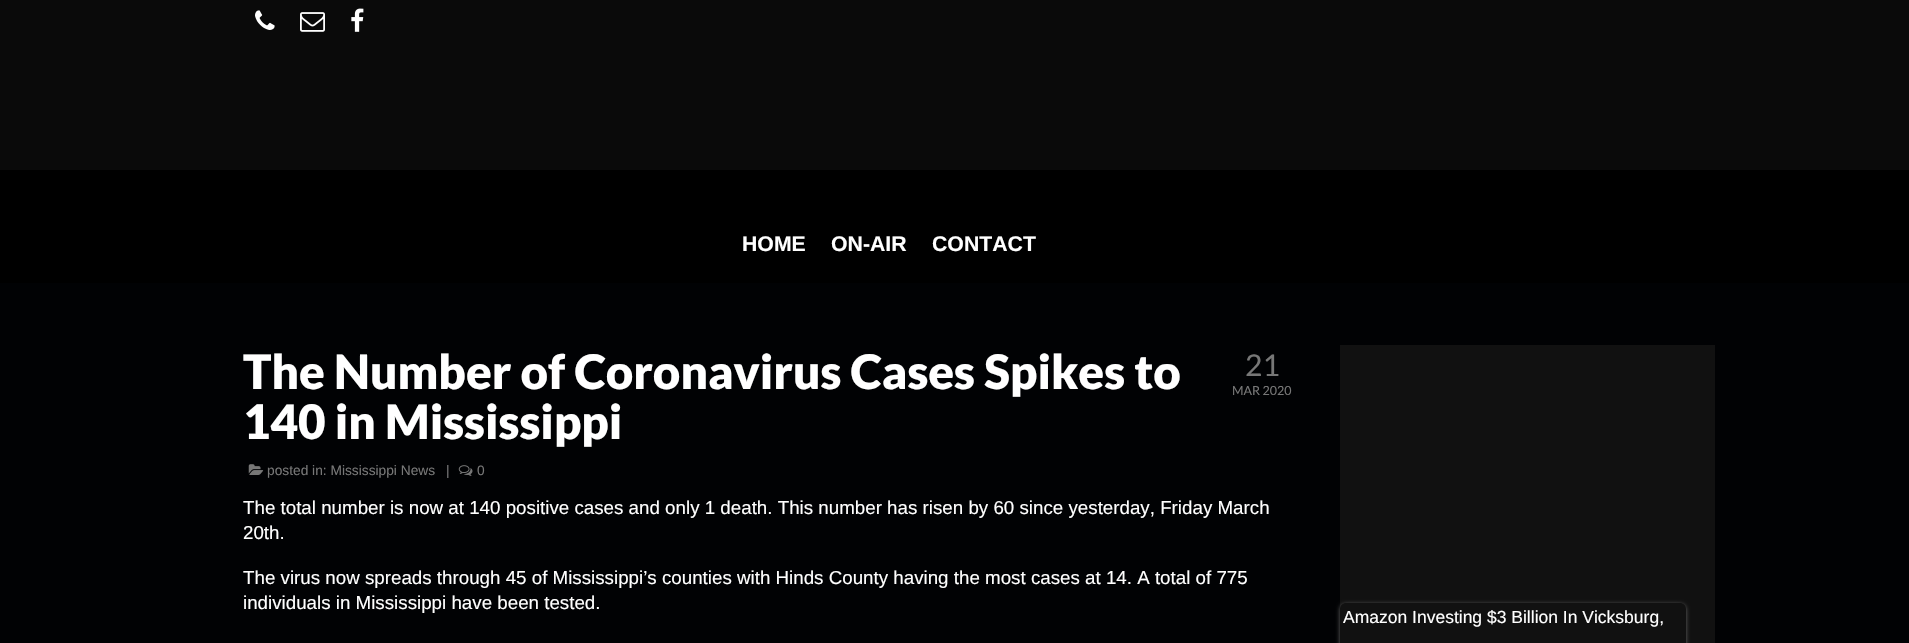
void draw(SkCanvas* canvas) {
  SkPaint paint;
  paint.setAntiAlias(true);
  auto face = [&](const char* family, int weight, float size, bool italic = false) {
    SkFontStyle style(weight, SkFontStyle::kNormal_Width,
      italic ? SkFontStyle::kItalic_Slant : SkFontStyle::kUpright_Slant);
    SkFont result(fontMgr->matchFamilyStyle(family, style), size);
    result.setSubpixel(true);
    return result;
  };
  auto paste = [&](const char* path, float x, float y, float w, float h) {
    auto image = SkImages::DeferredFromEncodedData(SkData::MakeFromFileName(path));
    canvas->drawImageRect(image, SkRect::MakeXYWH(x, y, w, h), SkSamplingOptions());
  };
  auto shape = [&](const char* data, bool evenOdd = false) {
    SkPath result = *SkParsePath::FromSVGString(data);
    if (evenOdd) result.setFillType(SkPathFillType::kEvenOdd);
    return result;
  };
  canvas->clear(0xff000000);
  paint.setColor(0xff0a0a0a);
  canvas->drawRect(SkRect::MakeXYWH(0, 0, 1909, 170), paint);
  paste("img/1.png", 255, 10, 20, 20);
  paste("img/2.png", 300, 12, 25, 20);
  paste("img/3.png", 351, 8, 13, 24);
  paint.setColor(0xff010204);
  canvas->drawRect(SkRect::MakeXYWH(0, 283, 1909, 360), paint);
  paste("img/4.png", 248, 464, 16, 11);
  paste("img/5.png", 458, 465, 15, 11);
  paint.setColor(0xff111111);
  canvas->drawRect(SkRect::MakeXYWH(1340, 345, 375, 298), paint);
  canvas->save();
  canvas->clipPath(shape("M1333 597H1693V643H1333ZM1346 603H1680C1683.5 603 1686 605.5 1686 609V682C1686 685.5 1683.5 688 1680 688H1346C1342.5 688 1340 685.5 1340 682V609C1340 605.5 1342.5 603 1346 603Z", true), true);
  paint.setColor(0xff666666);
  paint.setMaskFilter(SkMaskFilter::MakeBlur(kNormal_SkBlurStyle, 2));
  canvas->drawRoundRect(SkRect::MakeXYWH(1340, 604, 346, 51), 6, 6, paint);
  paint.setMaskFilter(nullptr);
  canvas->restore();
  auto f0 = face("Liberation Sans", 700, 21.25f);
  paint.setColor(0xffffffff);
  {
    const struct { const char* s; float x, y; } items[] = {
      {"HOME", 742, 251},
      {"ON-AIR", 831, 251},
      {"CONTACT", 932, 251},
    };
    for (auto [s, x, y] : items) {
      canvas->drawString(s, x, y, f0, paint);
    }
  }
  auto f1 = face("Lato", 900, 47.5f);
  canvas->drawString("The Number of Coronavirus Cases Spikes to", 243, 389, f1, paint);
  canvas->drawString("140 in Mississippi", 243, 439, f1, paint);
  auto f2 = face("Liberation Sans", 400, 13.75f);
  paint.setColor(0xff777777);
  {
    const struct { const char* s; float x, y; } items[] = {
      {"posted in: Mississippi News", 267, 475},
      {"|", 446, 475},
      {"0", 477, 475},
    };
    for (auto [s, x, y] : items) {
      canvas->drawString(s, x, y, f2, paint);
    }
  }
  auto f3 = face("Lato", 400, 30);
  canvas->drawString("21", 1245, 376, f3, paint);
  auto f4 = face("Lato", 400, 12.5f);
  canvas->drawString("MAR 2020", 1232, 395, f4, paint);
  auto f5 = face("Liberation Sans", 400, 18.75f);
  paint.setColor(0xffffffff);
  {
    const struct { const char* s; float x, y; } items[] = {
      {"The total number is now at 140 positive cases and only 1 death. This number has risen by 60 since yesterday, Friday March", 243, 514},
      {"20th.", 243, 539},
      {"The virus now spreads through 45 of Mississippi’s counties with Hinds County having the most cases at 14. A total of 775", 243, 584},
      {"individuals in Mississippi have been tested.", 243, 609},
    };
    for (auto [s, x, y] : items) {
      canvas->drawString(s, x, y, f5, paint);
    }
  }
  auto f6 = face("Liberation Sans", 400, 17.5f);
  canvas->drawString("Amazon Investing $3 Billion In Vicksburg,", 1343, 623, f6, paint);
}
